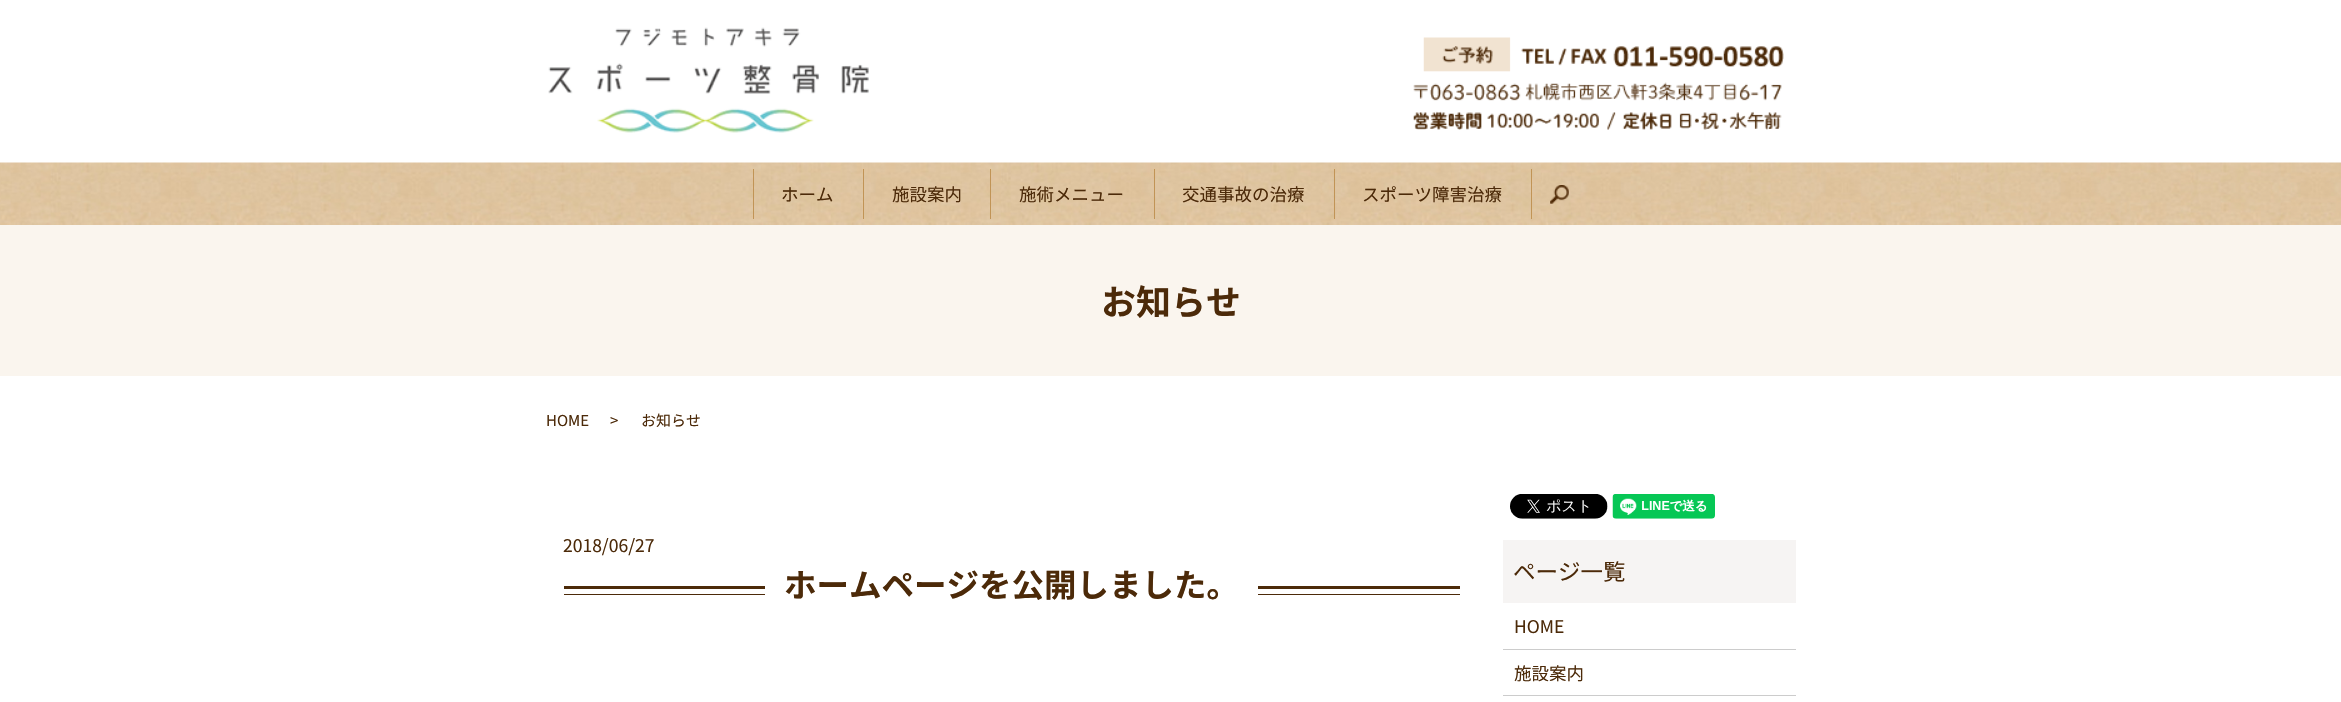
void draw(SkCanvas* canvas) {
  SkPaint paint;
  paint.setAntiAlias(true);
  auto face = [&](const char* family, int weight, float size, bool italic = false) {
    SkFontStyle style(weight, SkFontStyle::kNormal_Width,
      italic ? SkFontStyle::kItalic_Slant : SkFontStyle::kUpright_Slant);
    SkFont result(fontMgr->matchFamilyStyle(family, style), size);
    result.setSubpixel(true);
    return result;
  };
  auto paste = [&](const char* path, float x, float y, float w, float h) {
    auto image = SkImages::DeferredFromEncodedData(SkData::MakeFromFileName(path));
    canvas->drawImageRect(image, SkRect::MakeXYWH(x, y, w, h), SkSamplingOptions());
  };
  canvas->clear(0xffffffff);
  paste("img/1.png", 548, 27, 321, 106);
  paste("img/2.png", 1413, 37, 371, 93);
  paste("img/3.png", 0, 162, 2341, 63);
  {
    const struct { float x, y, w, h; SkColor color; } items[] = {
      {753, 169, 1, 50, 0xffc19456},
      {863, 169, 1, 50, 0xffc19456},
      {990, 169, 1, 50, 0xffc19456},
      {1154, 169, 1, 50, 0xffc19456},
      {1334, 169, 1, 50, 0xffc19456},
    };
    for (auto [x, y, w, h, color] : items) {
      paint.setColor(color);
      canvas->drawRect(SkRect::MakeXYWH(x, y, w, h), paint);
    }
  }
  paste("img/4.png", 1550, 185, 19, 19);
  {
    const struct { float x, y, w, h; SkColor color; } items[] = {
      {1531, 169, 1, 50, 0xffc19456},
      {0, 225, 2341, 151, 0xfffaf5ee},
      {564, 586, 201, 3, 0xff4c2a09},
      {564, 594, 201, 1, 0xff4c2a09},
      {1258, 586, 202, 3, 0xff4c2a09},
      {1258, 594, 202, 1, 0xff4c2a09},
    };
    for (auto [x, y, w, h, color] : items) {
      paint.setColor(color);
      canvas->drawRect(SkRect::MakeXYWH(x, y, w, h), paint);
    }
  }
  paste("img/5.png", 1510, 494, 98, 25);
  paste("img/6.png", 1612, 494, 103, 25);
  {
    const struct { float x, y, w, h; SkColor color; } items[] = {
      {1503, 540, 293, 63, 0xfff6f4f3},
      {1503, 649, 293, 1, 0xffcccccc},
      {1503, 695, 293, 1, 0xffcccccc},
    };
    for (auto [x, y, w, h, color] : items) {
      paint.setColor(color);
      canvas->drawRect(SkRect::MakeXYWH(x, y, w, h), paint);
    }
  }
  auto f0 = face("Noto Sans JP", 400, 17.5f);
  paint.setColor(0xff4c2a09);
  {
    const struct { const char* s; float x, y; } items[] = {
      {"ホーム", 781, 201},
      {"施設案内", 892, 201},
      {"施術メニュー", 1019, 201},
      {"交通事故の治療", 1182, 201},
      {"スポーツ障害治療", 1362, 201},
    };
    for (auto [s, x, y] : items) {
      canvas->drawString(s, x, y, f0, paint);
    }
  }
  auto f1 = face("Noto Sans JP", 700, 35);
  canvas->drawString("お知らせ", 1101, 315, f1, paint);
  auto f2 = face("Noto Sans JP", 400, 15);
  {
    const struct { const char* s; float x, y; } items[] = {
      {"HOME", 546, 426},
      {">", 610, 426},
      {"お知らせ", 641, 426},
    };
    for (auto [s, x, y] : items) {
      canvas->drawString(s, x, y, f2, paint);
    }
  }
  canvas->drawString("2018/06/27", 563, 552, f0, paint);
  auto f3 = face("Noto Sans JP", 700, 32.5f);
  canvas->drawString("ホームページを公開しました。", 784, 597, f3, paint);
  auto f4 = face("Noto Sans JP", 400, 22.5f);
  canvas->drawString("ページ一覧", 1513, 580, f4, paint);
  canvas->drawString("HOME", 1514, 633, f0, paint);
  canvas->drawString("施設案内", 1514, 680, f0, paint);
}
